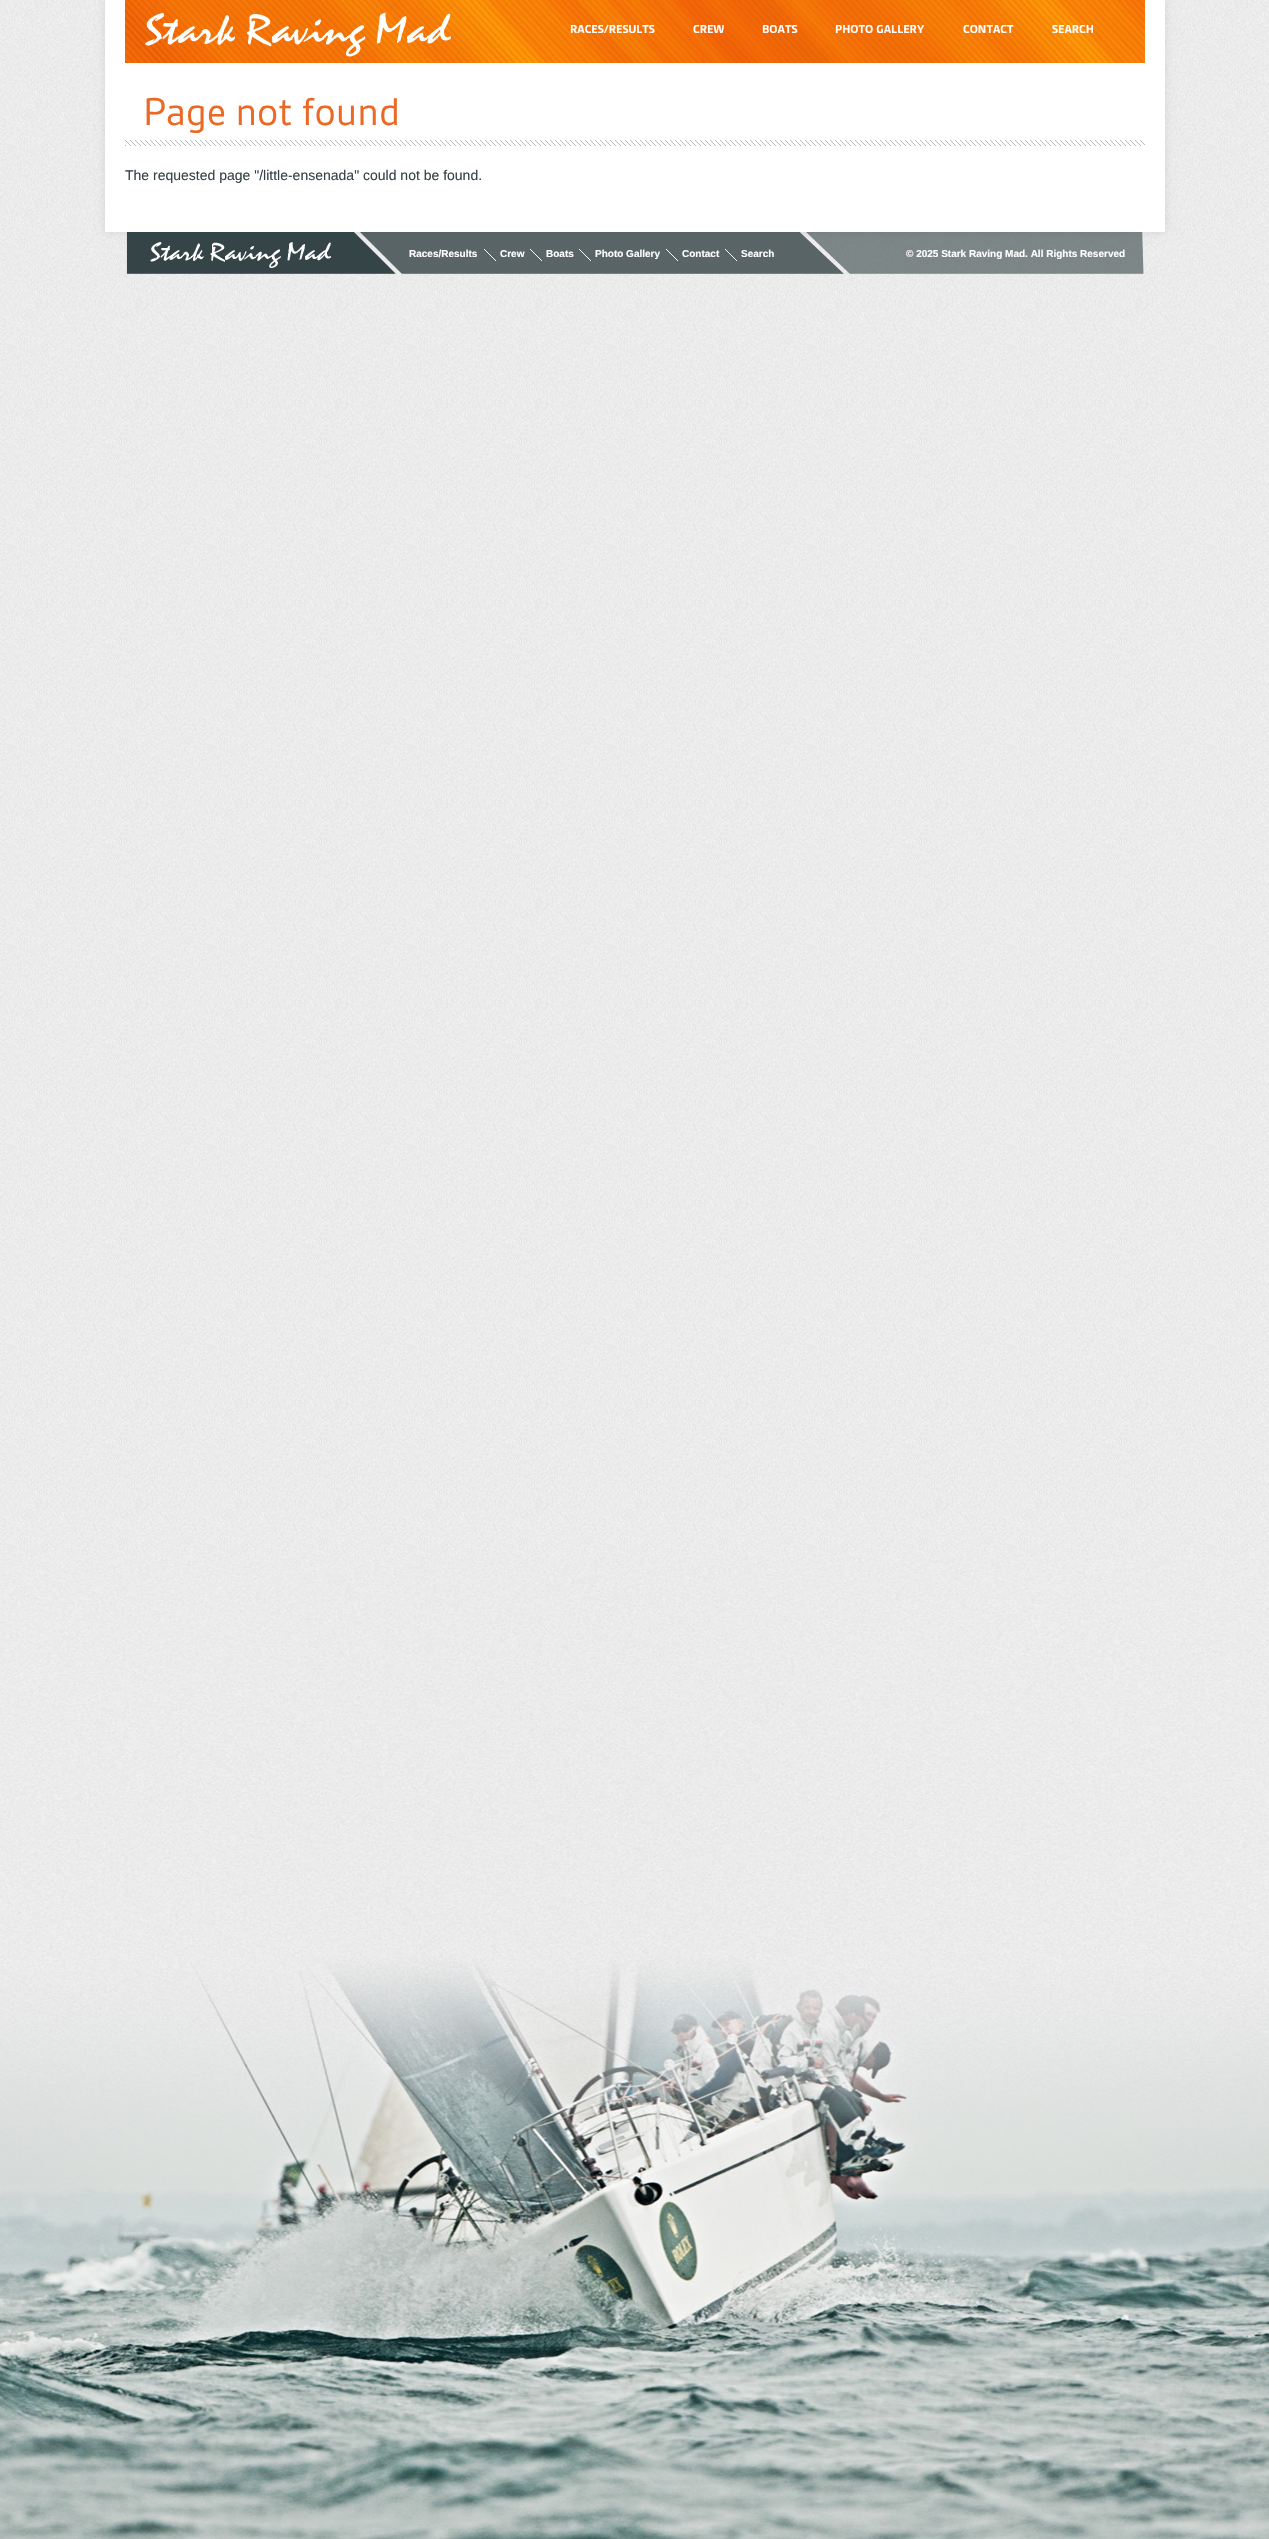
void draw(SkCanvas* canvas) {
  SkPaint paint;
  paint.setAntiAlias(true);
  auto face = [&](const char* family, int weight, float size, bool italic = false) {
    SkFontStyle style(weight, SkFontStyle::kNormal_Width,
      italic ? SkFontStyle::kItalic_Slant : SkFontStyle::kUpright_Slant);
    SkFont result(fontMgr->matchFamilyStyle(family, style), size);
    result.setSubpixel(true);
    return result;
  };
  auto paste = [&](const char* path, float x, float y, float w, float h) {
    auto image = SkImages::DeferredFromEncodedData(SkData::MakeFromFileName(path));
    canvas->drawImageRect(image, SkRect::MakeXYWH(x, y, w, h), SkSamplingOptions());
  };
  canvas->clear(0xffffffff);
  paste("img/1.png", 0, 0, 1269, 1557);
  paste("img/2.png", 0, 1557, 1269, 982);
  paint.setColor(0x1a000000);
  paint.setMaskFilter(SkMaskFilter::MakeBlur(kNormal_SkBlurStyle, 4));
  canvas->drawRect(SkRect::MakeXYWH(105, 0, 1060, 232), paint);
  paint.setMaskFilter(nullptr);
  paint.setColor(0xffffffff);
  canvas->drawRect(SkRect::MakeXYWH(105, 0, 1060, 232), paint);
  paste("img/3.png", 125, 0, 1020, 63);
  paste("img/4.png", 145, 12, 306, 45);
  paste("img/5.png", 125, 140, 1020, 6);
  paste("img/6.png", 126, 232, 1018, 42);
  paste("img/7.png", 150, 242, 181, 26);
  paste("img/8.png", 484, 249, 12, 12);
  paste("img/9.png", 530, 249, 12, 12);
  paste("img/10.png", 579, 249, 12, 12);
  paste("img/11.png", 666, 249, 12, 12);
  paste("img/12.png", 725, 249, 12, 12);
  auto f0 = face("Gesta", 700, 11);
  {
    const struct { const char* s; float x, y; } items[] = {
      {"RACES/RESULTS", 570, 33},
      {"CREW", 693, 33},
      {"BOATS", 762, 33},
      {"PHOTO GALLERY", 835, 33},
      {"CONTACT", 963, 33},
      {"SEARCH", 1052, 33},
    };
    for (auto [s, x, y] : items) {
      canvas->drawString(s, x, y, f0, paint);
    }
  }
  auto f1 = face("Gesta", 400, 37);
  paint.setColor(0xffeb6924);
  canvas->drawString("Page not found", 143, 125, f1, paint);
  auto f2 = face("Liberation Sans", 400, 14);
  paint.setColor(0xff334245);
  canvas->drawString("The requested page \"/little-ensenada\" could not be found.", 125, 180, f2, paint);
  auto f3 = face("Liberation Sans", 700, 10);
  paint.setColor(0xffffffff);
  {
    const struct { const char* s; float x, y; } items[] = {
      {"Races/Results", 409, 257},
      {"Crew", 500, 257},
      {"Boats", 546, 257},
      {"Photo Gallery", 595, 257},
      {"Contact", 682, 257},
      {"Search", 741, 257},
      {"© 2025 Stark Raving Mad. All Rights Reserved", 906, 257},
    };
    for (auto [s, x, y] : items) {
      canvas->drawString(s, x, y, f3, paint);
    }
  }
}
